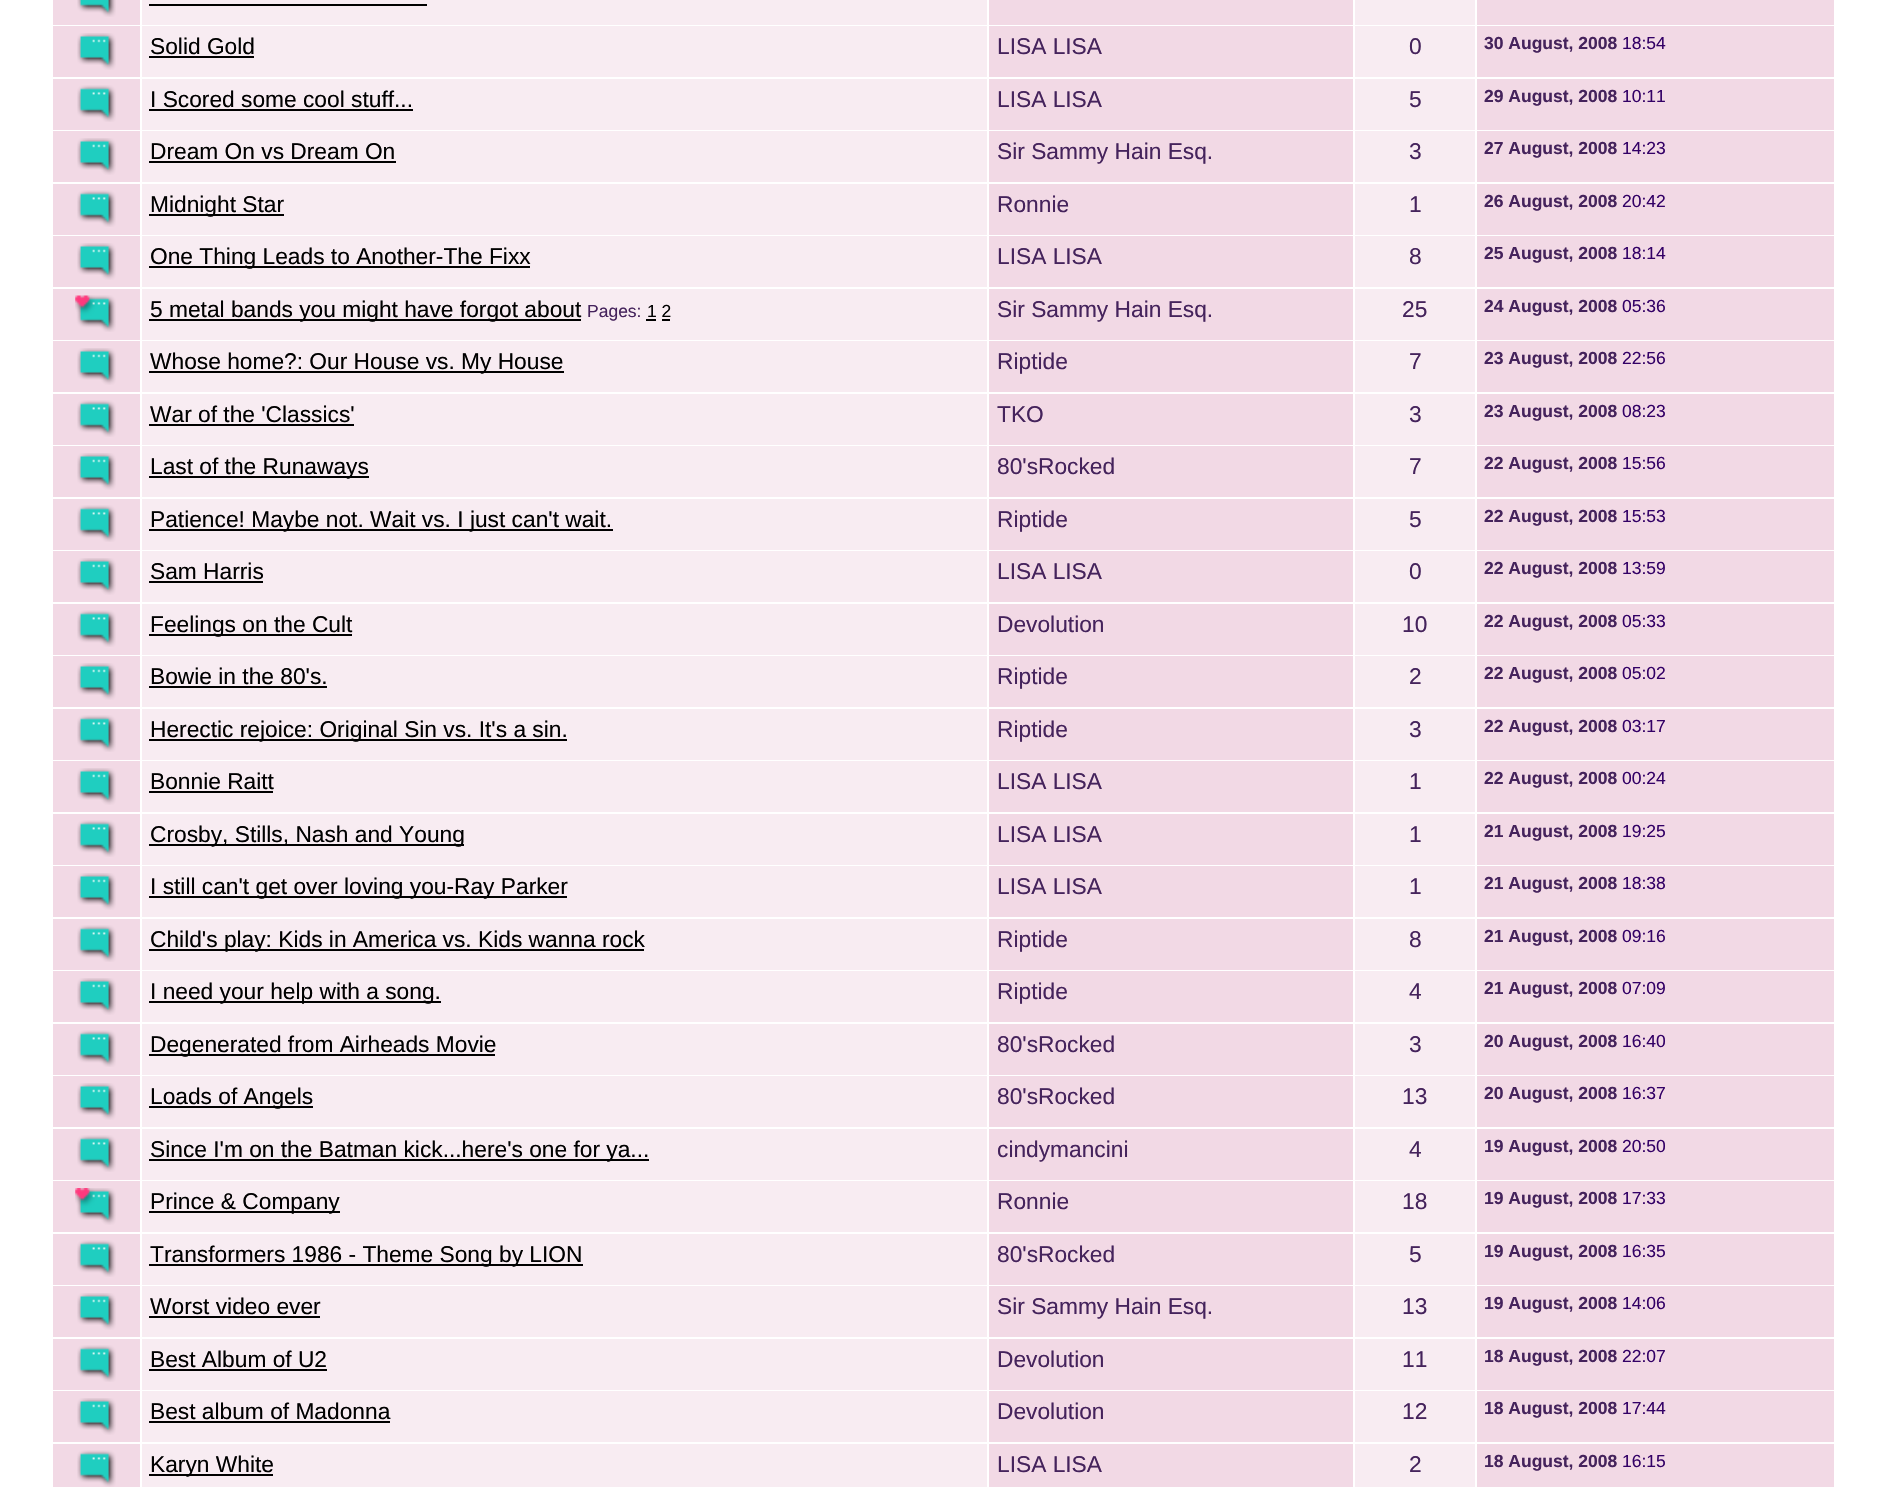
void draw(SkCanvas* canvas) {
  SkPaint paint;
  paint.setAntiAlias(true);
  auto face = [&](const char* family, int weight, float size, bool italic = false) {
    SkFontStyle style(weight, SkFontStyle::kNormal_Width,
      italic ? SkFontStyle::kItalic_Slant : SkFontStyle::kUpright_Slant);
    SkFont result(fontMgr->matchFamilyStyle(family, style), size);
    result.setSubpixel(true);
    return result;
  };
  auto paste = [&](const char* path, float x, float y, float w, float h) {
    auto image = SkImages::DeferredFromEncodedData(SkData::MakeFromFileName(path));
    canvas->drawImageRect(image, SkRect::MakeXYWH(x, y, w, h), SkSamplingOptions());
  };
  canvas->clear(0xffffffff);
  paint.setColor(0xfff2d9e5);
  canvas->drawRect(SkRect::MakeXYWH(53, 0, 87, 25), paint);
  paste("img/1.png", 77, 0, 39, 17);
  {
    const struct { float x, y, w, h; SkColor color; } items[] = {
      {142, 0, 845, 25, 0xfff8ecf2},
      {149, 4, 278, 2, 0xff000000},
      {989, 0, 364, 25, 0xfff2d9e5},
      {1355, 0, 120, 25, 0xfff8ecf2},
      {1477, 0, 357, 25, 0xfff2d9e5},
      {53, 26, 87, 51, 0xfff2d9e5},
    };
    for (auto [x, y, w, h, color] : items) {
      paint.setColor(color);
      canvas->drawRect(SkRect::MakeXYWH(x, y, w, h), paint);
    }
  }
  paste("img/2.png", 77, 33, 39, 37);
  {
    const struct { float x, y, w, h; SkColor color; } items[] = {
      {142, 26, 845, 51, 0xfff8ecf2},
      {149, 56, 105, 2, 0xff000000},
      {989, 26, 364, 51, 0xfff2d9e5},
      {1355, 26, 120, 51, 0xfff8ecf2},
      {1477, 26, 357, 51, 0xfff2d9e5},
      {53, 79, 87, 51, 0xfff2d9e5},
    };
    for (auto [x, y, w, h, color] : items) {
      paint.setColor(color);
      canvas->drawRect(SkRect::MakeXYWH(x, y, w, h), paint);
    }
  }
  paste("img/3.png", 77, 85, 39, 37);
  {
    const struct { float x, y, w, h; SkColor color; } items[] = {
      {142, 79, 845, 51, 0xfff8ecf2},
      {149, 109, 264, 2, 0xff000000},
      {989, 79, 364, 51, 0xfff2d9e5},
      {1355, 79, 120, 51, 0xfff8ecf2},
      {1477, 79, 357, 51, 0xfff2d9e5},
      {53, 131, 87, 51, 0xfff2d9e5},
    };
    for (auto [x, y, w, h, color] : items) {
      paint.setColor(color);
      canvas->drawRect(SkRect::MakeXYWH(x, y, w, h), paint);
    }
  }
  paste("img/2.png", 77, 138, 39, 37);
  {
    const struct { float x, y, w, h; SkColor color; } items[] = {
      {142, 131, 845, 51, 0xfff8ecf2},
      {149, 161, 247, 2, 0xff000000},
      {989, 131, 364, 51, 0xfff2d9e5},
      {1355, 131, 120, 51, 0xfff8ecf2},
      {1477, 131, 357, 51, 0xfff2d9e5},
      {53, 184, 87, 51, 0xfff2d9e5},
    };
    for (auto [x, y, w, h, color] : items) {
      paint.setColor(color);
      canvas->drawRect(SkRect::MakeXYWH(x, y, w, h), paint);
    }
  }
  paste("img/3.png", 77, 190, 39, 37);
  {
    const struct { float x, y, w, h; SkColor color; } items[] = {
      {142, 184, 845, 51, 0xfff8ecf2},
      {149, 214, 135, 2, 0xff000000},
      {989, 184, 364, 51, 0xfff2d9e5},
      {1355, 184, 120, 51, 0xfff8ecf2},
      {1477, 184, 357, 51, 0xfff2d9e5},
      {53, 236, 87, 51, 0xfff2d9e5},
    };
    for (auto [x, y, w, h, color] : items) {
      paint.setColor(color);
      canvas->drawRect(SkRect::MakeXYWH(x, y, w, h), paint);
    }
  }
  paste("img/2.png", 77, 243, 39, 37);
  {
    const struct { float x, y, w, h; SkColor color; } items[] = {
      {142, 236, 845, 51, 0xfff8ecf2},
      {149, 266, 381, 2, 0xff000000},
      {989, 236, 364, 51, 0xfff2d9e5},
      {1355, 236, 120, 51, 0xfff8ecf2},
      {1477, 236, 357, 51, 0xfff2d9e5},
      {53, 289, 87, 51, 0xfff2d9e5},
    };
    for (auto [x, y, w, h, color] : items) {
      paint.setColor(color);
      canvas->drawRect(SkRect::MakeXYWH(x, y, w, h), paint);
    }
  }
  paste("img/4.png", 75, 295, 41, 37);
  {
    const struct { float x, y, w, h; SkColor color; } items[] = {
      {142, 289, 845, 51, 0xfff8ecf2},
      {149, 319, 432, 2, 0xff000000},
      {646, 319, 10, 2, 0xff000000},
      {662, 319, 8, 2, 0xff000000},
      {989, 289, 364, 51, 0xfff2d9e5},
      {1355, 289, 120, 51, 0xfff8ecf2},
      {1477, 289, 357, 51, 0xfff2d9e5},
      {53, 341, 87, 51, 0xfff2d9e5},
    };
    for (auto [x, y, w, h, color] : items) {
      paint.setColor(color);
      canvas->drawRect(SkRect::MakeXYWH(x, y, w, h), paint);
    }
  }
  paste("img/2.png", 77, 348, 39, 37);
  {
    const struct { float x, y, w, h; SkColor color; } items[] = {
      {142, 341, 845, 51, 0xfff8ecf2},
      {149, 371, 415, 2, 0xff000000},
      {989, 341, 364, 51, 0xfff2d9e5},
      {1355, 341, 120, 51, 0xfff8ecf2},
      {1477, 341, 357, 51, 0xfff2d9e5},
      {53, 394, 87, 51, 0xfff2d9e5},
    };
    for (auto [x, y, w, h, color] : items) {
      paint.setColor(color);
      canvas->drawRect(SkRect::MakeXYWH(x, y, w, h), paint);
    }
  }
  paste("img/3.png", 77, 400, 39, 37);
  {
    const struct { float x, y, w, h; SkColor color; } items[] = {
      {142, 394, 845, 51, 0xfff8ecf2},
      {149, 424, 205, 2, 0xff000000},
      {989, 394, 364, 51, 0xfff2d9e5},
      {1355, 394, 120, 51, 0xfff8ecf2},
      {1477, 394, 357, 51, 0xfff2d9e5},
      {53, 446, 87, 51, 0xfff2d9e5},
    };
    for (auto [x, y, w, h, color] : items) {
      paint.setColor(color);
      canvas->drawRect(SkRect::MakeXYWH(x, y, w, h), paint);
    }
  }
  paste("img/2.png", 77, 453, 39, 37);
  {
    const struct { float x, y, w, h; SkColor color; } items[] = {
      {142, 446, 845, 51, 0xfff8ecf2},
      {149, 476, 220, 2, 0xff000000},
      {989, 446, 364, 51, 0xfff2d9e5},
      {1355, 446, 120, 51, 0xfff8ecf2},
      {1477, 446, 357, 51, 0xfff2d9e5},
      {53, 499, 87, 51, 0xfff2d9e5},
    };
    for (auto [x, y, w, h, color] : items) {
      paint.setColor(color);
      canvas->drawRect(SkRect::MakeXYWH(x, y, w, h), paint);
    }
  }
  paste("img/3.png", 77, 505, 39, 37);
  {
    const struct { float x, y, w, h; SkColor color; } items[] = {
      {142, 499, 845, 51, 0xfff8ecf2},
      {149, 529, 464, 2, 0xff000000},
      {989, 499, 364, 51, 0xfff2d9e5},
      {1355, 499, 120, 51, 0xfff8ecf2},
      {1477, 499, 357, 51, 0xfff2d9e5},
      {53, 551, 87, 51, 0xfff2d9e5},
    };
    for (auto [x, y, w, h, color] : items) {
      paint.setColor(color);
      canvas->drawRect(SkRect::MakeXYWH(x, y, w, h), paint);
    }
  }
  paste("img/2.png", 77, 558, 39, 37);
  {
    const struct { float x, y, w, h; SkColor color; } items[] = {
      {142, 551, 845, 51, 0xfff8ecf2},
      {149, 581, 114, 2, 0xff000000},
      {989, 551, 364, 51, 0xfff2d9e5},
      {1355, 551, 120, 51, 0xfff8ecf2},
      {1477, 551, 357, 51, 0xfff2d9e5},
      {53, 604, 87, 51, 0xfff2d9e5},
    };
    for (auto [x, y, w, h, color] : items) {
      paint.setColor(color);
      canvas->drawRect(SkRect::MakeXYWH(x, y, w, h), paint);
    }
  }
  paste("img/3.png", 77, 610, 39, 37);
  {
    const struct { float x, y, w, h; SkColor color; } items[] = {
      {142, 604, 845, 51, 0xfff8ecf2},
      {149, 634, 203, 2, 0xff000000},
      {989, 604, 364, 51, 0xfff2d9e5},
      {1355, 604, 120, 51, 0xfff8ecf2},
      {1477, 604, 357, 51, 0xfff2d9e5},
      {53, 656, 87, 51, 0xfff2d9e5},
    };
    for (auto [x, y, w, h, color] : items) {
      paint.setColor(color);
      canvas->drawRect(SkRect::MakeXYWH(x, y, w, h), paint);
    }
  }
  paste("img/2.png", 77, 663, 39, 37);
  {
    const struct { float x, y, w, h; SkColor color; } items[] = {
      {142, 656, 845, 51, 0xfff8ecf2},
      {149, 686, 178, 2, 0xff000000},
      {989, 656, 364, 51, 0xfff2d9e5},
      {1355, 656, 120, 51, 0xfff8ecf2},
      {1477, 656, 357, 51, 0xfff2d9e5},
      {53, 709, 87, 51, 0xfff2d9e5},
    };
    for (auto [x, y, w, h, color] : items) {
      paint.setColor(color);
      canvas->drawRect(SkRect::MakeXYWH(x, y, w, h), paint);
    }
  }
  paste("img/3.png", 77, 715, 39, 37);
  {
    const struct { float x, y, w, h; SkColor color; } items[] = {
      {142, 709, 845, 51, 0xfff8ecf2},
      {149, 739, 418, 2, 0xff000000},
      {989, 709, 364, 51, 0xfff2d9e5},
      {1355, 709, 120, 51, 0xfff8ecf2},
      {1477, 709, 357, 51, 0xfff2d9e5},
      {53, 761, 87, 51, 0xfff2d9e5},
    };
    for (auto [x, y, w, h, color] : items) {
      paint.setColor(color);
      canvas->drawRect(SkRect::MakeXYWH(x, y, w, h), paint);
    }
  }
  paste("img/2.png", 77, 768, 39, 37);
  {
    const struct { float x, y, w, h; SkColor color; } items[] = {
      {142, 761, 845, 51, 0xfff8ecf2},
      {149, 791, 124, 2, 0xff000000},
      {989, 761, 364, 51, 0xfff2d9e5},
      {1355, 761, 120, 51, 0xfff8ecf2},
      {1477, 761, 357, 51, 0xfff2d9e5},
      {53, 814, 87, 51, 0xfff2d9e5},
    };
    for (auto [x, y, w, h, color] : items) {
      paint.setColor(color);
      canvas->drawRect(SkRect::MakeXYWH(x, y, w, h), paint);
    }
  }
  paste("img/3.png", 77, 820, 39, 37);
  {
    const struct { float x, y, w, h; SkColor color; } items[] = {
      {142, 814, 845, 51, 0xfff8ecf2},
      {149, 844, 315, 2, 0xff000000},
      {989, 814, 364, 51, 0xfff2d9e5},
      {1355, 814, 120, 51, 0xfff8ecf2},
      {1477, 814, 357, 51, 0xfff2d9e5},
      {53, 866, 87, 51, 0xfff2d9e5},
    };
    for (auto [x, y, w, h, color] : items) {
      paint.setColor(color);
      canvas->drawRect(SkRect::MakeXYWH(x, y, w, h), paint);
    }
  }
  paste("img/2.png", 77, 873, 39, 37);
  {
    const struct { float x, y, w, h; SkColor color; } items[] = {
      {142, 866, 845, 51, 0xfff8ecf2},
      {149, 896, 418, 2, 0xff000000},
      {989, 866, 364, 51, 0xfff2d9e5},
      {1355, 866, 120, 51, 0xfff8ecf2},
      {1477, 866, 357, 51, 0xfff2d9e5},
      {53, 919, 87, 51, 0xfff2d9e5},
    };
    for (auto [x, y, w, h, color] : items) {
      paint.setColor(color);
      canvas->drawRect(SkRect::MakeXYWH(x, y, w, h), paint);
    }
  }
  paste("img/3.png", 77, 925, 39, 37);
  {
    const struct { float x, y, w, h; SkColor color; } items[] = {
      {142, 919, 845, 51, 0xfff8ecf2},
      {149, 949, 495, 2, 0xff000000},
      {989, 919, 364, 51, 0xfff2d9e5},
      {1355, 919, 120, 51, 0xfff8ecf2},
      {1477, 919, 357, 51, 0xfff2d9e5},
      {53, 971, 87, 51, 0xfff2d9e5},
    };
    for (auto [x, y, w, h, color] : items) {
      paint.setColor(color);
      canvas->drawRect(SkRect::MakeXYWH(x, y, w, h), paint);
    }
  }
  paste("img/2.png", 77, 978, 39, 37);
  {
    const struct { float x, y, w, h; SkColor color; } items[] = {
      {142, 971, 845, 51, 0xfff8ecf2},
      {149, 1001, 292, 2, 0xff000000},
      {989, 971, 364, 51, 0xfff2d9e5},
      {1355, 971, 120, 51, 0xfff8ecf2},
      {1477, 971, 357, 51, 0xfff2d9e5},
      {53, 1024, 87, 51, 0xfff2d9e5},
    };
    for (auto [x, y, w, h, color] : items) {
      paint.setColor(color);
      canvas->drawRect(SkRect::MakeXYWH(x, y, w, h), paint);
    }
  }
  paste("img/3.png", 77, 1030, 39, 37);
  {
    const struct { float x, y, w, h; SkColor color; } items[] = {
      {142, 1024, 845, 51, 0xfff8ecf2},
      {149, 1054, 346, 2, 0xff000000},
      {989, 1024, 364, 51, 0xfff2d9e5},
      {1355, 1024, 120, 51, 0xfff8ecf2},
      {1477, 1024, 357, 51, 0xfff2d9e5},
      {53, 1076, 87, 51, 0xfff2d9e5},
    };
    for (auto [x, y, w, h, color] : items) {
      paint.setColor(color);
      canvas->drawRect(SkRect::MakeXYWH(x, y, w, h), paint);
    }
  }
  paste("img/2.png", 77, 1083, 39, 37);
  {
    const struct { float x, y, w, h; SkColor color; } items[] = {
      {142, 1076, 845, 51, 0xfff8ecf2},
      {149, 1106, 164, 2, 0xff000000},
      {989, 1076, 364, 51, 0xfff2d9e5},
      {1355, 1076, 120, 51, 0xfff8ecf2},
      {1477, 1076, 357, 51, 0xfff2d9e5},
      {53, 1129, 87, 51, 0xfff2d9e5},
    };
    for (auto [x, y, w, h, color] : items) {
      paint.setColor(color);
      canvas->drawRect(SkRect::MakeXYWH(x, y, w, h), paint);
    }
  }
  paste("img/3.png", 77, 1135, 39, 37);
  {
    const struct { float x, y, w, h; SkColor color; } items[] = {
      {142, 1129, 845, 51, 0xfff8ecf2},
      {149, 1159, 500, 2, 0xff000000},
      {989, 1129, 364, 51, 0xfff2d9e5},
      {1355, 1129, 120, 51, 0xfff8ecf2},
      {1477, 1129, 357, 51, 0xfff2d9e5},
      {53, 1181, 87, 51, 0xfff2d9e5},
    };
    for (auto [x, y, w, h, color] : items) {
      paint.setColor(color);
      canvas->drawRect(SkRect::MakeXYWH(x, y, w, h), paint);
    }
  }
  paste("img/5.png", 75, 1188, 41, 37);
  {
    const struct { float x, y, w, h; SkColor color; } items[] = {
      {142, 1181, 845, 51, 0xfff8ecf2},
      {149, 1211, 191, 2, 0xff000000},
      {989, 1181, 364, 51, 0xfff2d9e5},
      {1355, 1181, 120, 51, 0xfff8ecf2},
      {1477, 1181, 357, 51, 0xfff2d9e5},
      {53, 1234, 87, 51, 0xfff2d9e5},
    };
    for (auto [x, y, w, h, color] : items) {
      paint.setColor(color);
      canvas->drawRect(SkRect::MakeXYWH(x, y, w, h), paint);
    }
  }
  paste("img/3.png", 77, 1240, 39, 37);
  {
    const struct { float x, y, w, h; SkColor color; } items[] = {
      {142, 1234, 845, 51, 0xfff8ecf2},
      {149, 1264, 434, 2, 0xff000000},
      {989, 1234, 364, 51, 0xfff2d9e5},
      {1355, 1234, 120, 51, 0xfff8ecf2},
      {1477, 1234, 357, 51, 0xfff2d9e5},
      {53, 1286, 87, 51, 0xfff2d9e5},
    };
    for (auto [x, y, w, h, color] : items) {
      paint.setColor(color);
      canvas->drawRect(SkRect::MakeXYWH(x, y, w, h), paint);
    }
  }
  paste("img/2.png", 77, 1293, 39, 37);
  {
    const struct { float x, y, w, h; SkColor color; } items[] = {
      {142, 1286, 845, 51, 0xfff8ecf2},
      {149, 1316, 171, 2, 0xff000000},
      {989, 1286, 364, 51, 0xfff2d9e5},
      {1355, 1286, 120, 51, 0xfff8ecf2},
      {1477, 1286, 357, 51, 0xfff2d9e5},
      {53, 1339, 87, 51, 0xfff2d9e5},
    };
    for (auto [x, y, w, h, color] : items) {
      paint.setColor(color);
      canvas->drawRect(SkRect::MakeXYWH(x, y, w, h), paint);
    }
  }
  paste("img/3.png", 77, 1345, 39, 37);
  {
    const struct { float x, y, w, h; SkColor color; } items[] = {
      {142, 1339, 845, 51, 0xfff8ecf2},
      {149, 1369, 178, 2, 0xff000000},
      {989, 1339, 364, 51, 0xfff2d9e5},
      {1355, 1339, 120, 51, 0xfff8ecf2},
      {1477, 1339, 357, 51, 0xfff2d9e5},
      {53, 1391, 87, 51, 0xfff2d9e5},
    };
    for (auto [x, y, w, h, color] : items) {
      paint.setColor(color);
      canvas->drawRect(SkRect::MakeXYWH(x, y, w, h), paint);
    }
  }
  paste("img/2.png", 77, 1398, 39, 37);
  {
    const struct { float x, y, w, h; SkColor color; } items[] = {
      {142, 1391, 845, 51, 0xfff8ecf2},
      {149, 1421, 241, 2, 0xff000000},
      {989, 1391, 364, 51, 0xfff2d9e5},
      {1355, 1391, 120, 51, 0xfff8ecf2},
      {1477, 1391, 357, 51, 0xfff2d9e5},
      {53, 1444, 87, 43, 0xfff2d9e5},
    };
    for (auto [x, y, w, h, color] : items) {
      paint.setColor(color);
      canvas->drawRect(SkRect::MakeXYWH(x, y, w, h), paint);
    }
  }
  paste("img/3.png", 77, 1450, 39, 37);
  {
    const struct { float x, y, w, h; SkColor color; } items[] = {
      {142, 1444, 845, 43, 0xfff8ecf2},
      {149, 1474, 124, 2, 0xff000000},
      {989, 1444, 364, 43, 0xfff2d9e5},
      {1355, 1444, 120, 43, 0xfff8ecf2},
      {1477, 1444, 357, 43, 0xfff2d9e5},
    };
    for (auto [x, y, w, h, color] : items) {
      paint.setColor(color);
      canvas->drawRect(SkRect::MakeXYWH(x, y, w, h), paint);
    }
  }
  auto f0 = face("Liberation Sans", 400, 22.75f);
  paint.setColor(0xff000000);
  canvas->drawString("Solid Gold", 150, 54, f0, paint);
  paint.setColor(0xff45235c);
  canvas->drawString("LISA LISA", 997, 54, f0, paint);
  canvas->drawString("0", 1409, 54, f0, paint);
  auto f1 = face("Liberation Sans", 700, 17.5f);
  canvas->drawString("30 August, 2008", 1484, 49, f1, paint);
  auto f2 = face("Liberation Sans", 400, 17.5f);
  paint.setColor(0xff330066);
  canvas->drawString("18:54", 1622, 49, f2, paint);
  paint.setColor(0xff000000);
  canvas->drawString("I Scored some cool stuff...", 150, 107, f0, paint);
  paint.setColor(0xff45235c);
  canvas->drawString("LISA LISA", 997, 107, f0, paint);
  canvas->drawString("5", 1409, 107, f0, paint);
  canvas->drawString("29 August, 2008", 1484, 102, f1, paint);
  paint.setColor(0xff330066);
  canvas->drawString("10:11", 1622, 102, f2, paint);
  paint.setColor(0xff000000);
  canvas->drawString("Dream On vs Dream On", 150, 159, f0, paint);
  paint.setColor(0xff45235c);
  canvas->drawString("Sir Sammy Hain Esq.", 997, 159, f0, paint);
  canvas->drawString("3", 1409, 159, f0, paint);
  canvas->drawString("27 August, 2008", 1484, 154, f1, paint);
  paint.setColor(0xff330066);
  canvas->drawString("14:23", 1622, 154, f2, paint);
  paint.setColor(0xff000000);
  canvas->drawString("Midnight Star", 150, 212, f0, paint);
  paint.setColor(0xff45235c);
  canvas->drawString("Ronnie", 997, 212, f0, paint);
  canvas->drawString("1", 1409, 212, f0, paint);
  canvas->drawString("26 August, 2008", 1484, 207, f1, paint);
  paint.setColor(0xff330066);
  canvas->drawString("20:42", 1622, 207, f2, paint);
  paint.setColor(0xff000000);
  canvas->drawString("One Thing Leads to Another-The Fixx", 150, 264, f0, paint);
  paint.setColor(0xff45235c);
  canvas->drawString("LISA LISA", 997, 264, f0, paint);
  canvas->drawString("8", 1409, 264, f0, paint);
  canvas->drawString("25 August, 2008", 1484, 259, f1, paint);
  paint.setColor(0xff330066);
  canvas->drawString("18:14", 1622, 259, f2, paint);
  paint.setColor(0xff000000);
  canvas->drawString("5 metal bands you might have forgot about", 150, 317, f0, paint);
  paint.setColor(0xff45235c);
  canvas->drawString("Pages:", 587, 317, f2, paint);
  paint.setColor(0xff000000);
  canvas->drawString("1 2", 647, 317, f2, paint);
  paint.setColor(0xff45235c);
  canvas->drawString("Sir Sammy Hain Esq.", 997, 317, f0, paint);
  canvas->drawString("25", 1402, 317, f0, paint);
  canvas->drawString("24 August, 2008", 1484, 312, f1, paint);
  paint.setColor(0xff330066);
  canvas->drawString("05:36", 1622, 312, f2, paint);
  paint.setColor(0xff000000);
  canvas->drawString("Whose home?: Our House vs. My House", 150, 369, f0, paint);
  paint.setColor(0xff45235c);
  canvas->drawString("Riptide", 997, 369, f0, paint);
  canvas->drawString("7", 1409, 369, f0, paint);
  canvas->drawString("23 August, 2008", 1484, 364, f1, paint);
  paint.setColor(0xff330066);
  canvas->drawString("22:56", 1622, 364, f2, paint);
  paint.setColor(0xff000000);
  canvas->drawString("War of the 'Classics'", 150, 422, f0, paint);
  paint.setColor(0xff45235c);
  canvas->drawString("TKO", 997, 422, f0, paint);
  canvas->drawString("3", 1409, 422, f0, paint);
  canvas->drawString("23 August, 2008", 1484, 417, f1, paint);
  paint.setColor(0xff330066);
  canvas->drawString("08:23", 1622, 417, f2, paint);
  paint.setColor(0xff000000);
  canvas->drawString("Last of the Runaways", 150, 474, f0, paint);
  paint.setColor(0xff45235c);
  canvas->drawString("80'sRocked", 997, 474, f0, paint);
  canvas->drawString("7", 1409, 474, f0, paint);
  canvas->drawString("22 August, 2008", 1484, 469, f1, paint);
  paint.setColor(0xff330066);
  canvas->drawString("15:56", 1622, 469, f2, paint);
  paint.setColor(0xff000000);
  canvas->drawString("Patience! Maybe not. Wait vs. I just can't wait.", 150, 527, f0, paint);
  paint.setColor(0xff45235c);
  canvas->drawString("Riptide", 997, 527, f0, paint);
  canvas->drawString("5", 1409, 527, f0, paint);
  canvas->drawString("22 August, 2008", 1484, 522, f1, paint);
  paint.setColor(0xff330066);
  canvas->drawString("15:53", 1622, 522, f2, paint);
  paint.setColor(0xff000000);
  canvas->drawString("Sam Harris", 150, 579, f0, paint);
  paint.setColor(0xff45235c);
  canvas->drawString("LISA LISA", 997, 579, f0, paint);
  canvas->drawString("0", 1409, 579, f0, paint);
  canvas->drawString("22 August, 2008", 1484, 574, f1, paint);
  paint.setColor(0xff330066);
  canvas->drawString("13:59", 1622, 574, f2, paint);
  paint.setColor(0xff000000);
  canvas->drawString("Feelings on the Cult", 150, 632, f0, paint);
  paint.setColor(0xff45235c);
  canvas->drawString("Devolution", 997, 632, f0, paint);
  canvas->drawString("10", 1402, 632, f0, paint);
  canvas->drawString("22 August, 2008", 1484, 627, f1, paint);
  paint.setColor(0xff330066);
  canvas->drawString("05:33", 1622, 627, f2, paint);
  paint.setColor(0xff000000);
  canvas->drawString("Bowie in the 80's.", 150, 684, f0, paint);
  paint.setColor(0xff45235c);
  canvas->drawString("Riptide", 997, 684, f0, paint);
  canvas->drawString("2", 1409, 684, f0, paint);
  canvas->drawString("22 August, 2008", 1484, 679, f1, paint);
  paint.setColor(0xff330066);
  canvas->drawString("05:02", 1622, 679, f2, paint);
  paint.setColor(0xff000000);
  canvas->drawString("Herectic rejoice: Original Sin vs. It's a sin.", 150, 737, f0, paint);
  paint.setColor(0xff45235c);
  canvas->drawString("Riptide", 997, 737, f0, paint);
  canvas->drawString("3", 1409, 737, f0, paint);
  canvas->drawString("22 August, 2008", 1484, 732, f1, paint);
  paint.setColor(0xff330066);
  canvas->drawString("03:17", 1622, 732, f2, paint);
  paint.setColor(0xff000000);
  canvas->drawString("Bonnie Raitt", 150, 789, f0, paint);
  paint.setColor(0xff45235c);
  canvas->drawString("LISA LISA", 997, 789, f0, paint);
  canvas->drawString("1", 1409, 789, f0, paint);
  canvas->drawString("22 August, 2008", 1484, 784, f1, paint);
  paint.setColor(0xff330066);
  canvas->drawString("00:24", 1622, 784, f2, paint);
  paint.setColor(0xff000000);
  canvas->drawString("Crosby, Stills, Nash and Young", 150, 842, f0, paint);
  paint.setColor(0xff45235c);
  canvas->drawString("LISA LISA", 997, 842, f0, paint);
  canvas->drawString("1", 1409, 842, f0, paint);
  canvas->drawString("21 August, 2008", 1484, 837, f1, paint);
  paint.setColor(0xff330066);
  canvas->drawString("19:25", 1622, 837, f2, paint);
  paint.setColor(0xff000000);
  canvas->drawString("I still can't get over loving you-Ray Parker", 150, 894, f0, paint);
  paint.setColor(0xff45235c);
  canvas->drawString("LISA LISA", 997, 894, f0, paint);
  canvas->drawString("1", 1409, 894, f0, paint);
  canvas->drawString("21 August, 2008", 1484, 889, f1, paint);
  paint.setColor(0xff330066);
  canvas->drawString("18:38", 1622, 889, f2, paint);
  paint.setColor(0xff000000);
  canvas->drawString("Child's play: Kids in America vs. Kids wanna rock", 150, 947, f0, paint);
  paint.setColor(0xff45235c);
  canvas->drawString("Riptide", 997, 947, f0, paint);
  canvas->drawString("8", 1409, 947, f0, paint);
  canvas->drawString("21 August, 2008", 1484, 942, f1, paint);
  paint.setColor(0xff330066);
  canvas->drawString("09:16", 1622, 942, f2, paint);
  paint.setColor(0xff000000);
  canvas->drawString("I need your help with a song.", 150, 999, f0, paint);
  paint.setColor(0xff45235c);
  canvas->drawString("Riptide", 997, 999, f0, paint);
  canvas->drawString("4", 1409, 999, f0, paint);
  canvas->drawString("21 August, 2008", 1484, 994, f1, paint);
  paint.setColor(0xff330066);
  canvas->drawString("07:09", 1622, 994, f2, paint);
  paint.setColor(0xff000000);
  canvas->drawString("Degenerated from Airheads Movie", 150, 1052, f0, paint);
  paint.setColor(0xff45235c);
  canvas->drawString("80'sRocked", 997, 1052, f0, paint);
  canvas->drawString("3", 1409, 1052, f0, paint);
  canvas->drawString("20 August, 2008", 1484, 1047, f1, paint);
  paint.setColor(0xff330066);
  canvas->drawString("16:40", 1622, 1047, f2, paint);
  paint.setColor(0xff000000);
  canvas->drawString("Loads of Angels", 150, 1104, f0, paint);
  paint.setColor(0xff45235c);
  canvas->drawString("80'sRocked", 997, 1104, f0, paint);
  canvas->drawString("13", 1402, 1104, f0, paint);
  canvas->drawString("20 August, 2008", 1484, 1099, f1, paint);
  paint.setColor(0xff330066);
  canvas->drawString("16:37", 1622, 1099, f2, paint);
  paint.setColor(0xff000000);
  canvas->drawString("Since I'm on the Batman kick...here's one for ya...", 150, 1157, f0, paint);
  paint.setColor(0xff45235c);
  canvas->drawString("cindymancini", 997, 1157, f0, paint);
  canvas->drawString("4", 1409, 1157, f0, paint);
  canvas->drawString("19 August, 2008", 1484, 1152, f1, paint);
  paint.setColor(0xff330066);
  canvas->drawString("20:50", 1622, 1152, f2, paint);
  paint.setColor(0xff000000);
  canvas->drawString("Prince & Company", 150, 1209, f0, paint);
  paint.setColor(0xff45235c);
  canvas->drawString("Ronnie", 997, 1209, f0, paint);
  canvas->drawString("18", 1402, 1209, f0, paint);
  canvas->drawString("19 August, 2008", 1484, 1204, f1, paint);
  paint.setColor(0xff330066);
  canvas->drawString("17:33", 1622, 1204, f2, paint);
  paint.setColor(0xff000000);
  canvas->drawString("Transformers 1986 - Theme Song by LION", 150, 1262, f0, paint);
  paint.setColor(0xff45235c);
  canvas->drawString("80'sRocked", 997, 1262, f0, paint);
  canvas->drawString("5", 1409, 1262, f0, paint);
  canvas->drawString("19 August, 2008", 1484, 1257, f1, paint);
  paint.setColor(0xff330066);
  canvas->drawString("16:35", 1622, 1257, f2, paint);
  paint.setColor(0xff000000);
  canvas->drawString("Worst video ever", 150, 1314, f0, paint);
  paint.setColor(0xff45235c);
  canvas->drawString("Sir Sammy Hain Esq.", 997, 1314, f0, paint);
  canvas->drawString("13", 1402, 1314, f0, paint);
  canvas->drawString("19 August, 2008", 1484, 1309, f1, paint);
  paint.setColor(0xff330066);
  canvas->drawString("14:06", 1622, 1309, f2, paint);
  paint.setColor(0xff000000);
  canvas->drawString("Best Album of U2", 150, 1367, f0, paint);
  paint.setColor(0xff45235c);
  canvas->drawString("Devolution", 997, 1367, f0, paint);
  canvas->drawString("11", 1402, 1367, f0, paint);
  canvas->drawString("18 August, 2008", 1484, 1362, f1, paint);
  paint.setColor(0xff330066);
  canvas->drawString("22:07", 1622, 1362, f2, paint);
  paint.setColor(0xff000000);
  canvas->drawString("Best album of Madonna", 150, 1419, f0, paint);
  paint.setColor(0xff45235c);
  canvas->drawString("Devolution", 997, 1419, f0, paint);
  canvas->drawString("12", 1402, 1419, f0, paint);
  canvas->drawString("18 August, 2008", 1484, 1414, f1, paint);
  paint.setColor(0xff330066);
  canvas->drawString("17:44", 1622, 1414, f2, paint);
  paint.setColor(0xff000000);
  canvas->drawString("Karyn White", 150, 1472, f0, paint);
  paint.setColor(0xff45235c);
  canvas->drawString("LISA LISA", 997, 1472, f0, paint);
  canvas->drawString("2", 1409, 1472, f0, paint);
  canvas->drawString("18 August, 2008", 1484, 1467, f1, paint);
  paint.setColor(0xff330066);
  canvas->drawString("16:15", 1622, 1467, f2, paint);
}
